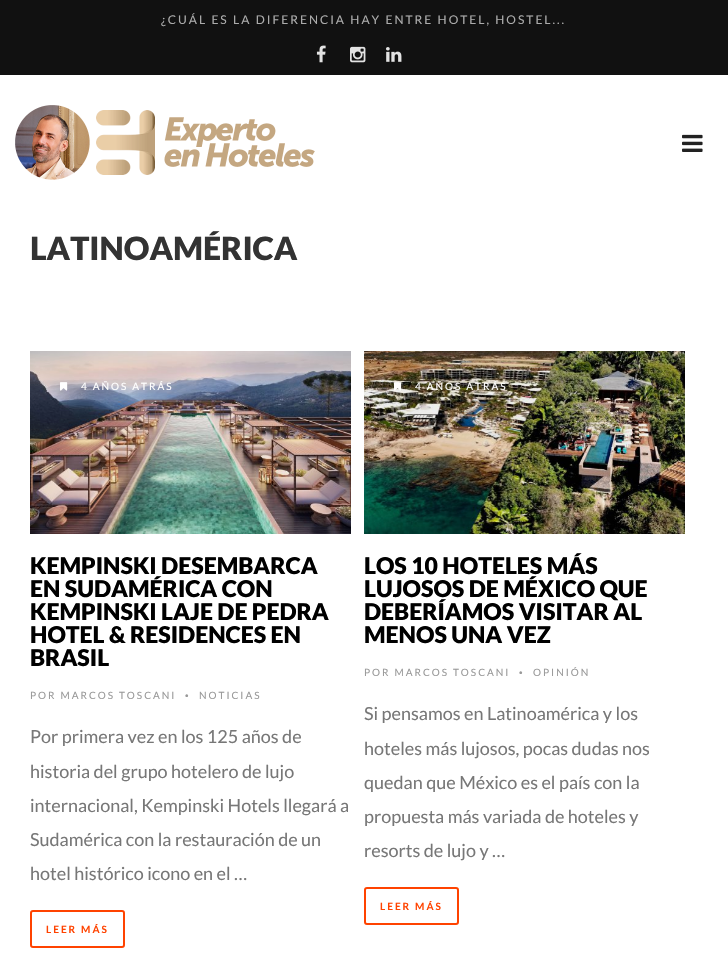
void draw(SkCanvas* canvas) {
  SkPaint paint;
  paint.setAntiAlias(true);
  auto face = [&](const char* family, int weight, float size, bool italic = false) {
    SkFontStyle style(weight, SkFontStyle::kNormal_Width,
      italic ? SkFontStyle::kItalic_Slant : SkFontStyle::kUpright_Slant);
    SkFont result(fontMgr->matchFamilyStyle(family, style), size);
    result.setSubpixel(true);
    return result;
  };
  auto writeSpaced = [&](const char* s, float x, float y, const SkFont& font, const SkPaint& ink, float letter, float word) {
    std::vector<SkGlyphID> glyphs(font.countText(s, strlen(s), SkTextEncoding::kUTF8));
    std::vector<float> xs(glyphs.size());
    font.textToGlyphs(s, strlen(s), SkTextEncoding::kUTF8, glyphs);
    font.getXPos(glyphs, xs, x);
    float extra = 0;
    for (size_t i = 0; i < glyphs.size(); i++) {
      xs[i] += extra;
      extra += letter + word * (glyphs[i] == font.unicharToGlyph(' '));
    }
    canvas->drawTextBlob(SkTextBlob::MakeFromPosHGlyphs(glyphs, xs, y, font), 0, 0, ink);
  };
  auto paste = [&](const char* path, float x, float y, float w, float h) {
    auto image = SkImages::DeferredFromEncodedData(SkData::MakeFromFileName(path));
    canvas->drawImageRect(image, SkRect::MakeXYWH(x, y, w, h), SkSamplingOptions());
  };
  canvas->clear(0xffffffff);
  paint.setColor(0xff111111);
  canvas->drawRect(SkRect::MakeXYWH(0, 0, 728, 75), paint);
  paste("img/1.png", 316, 45, 10, 18);
  paste("img/2.png", 350, 46, 16, 17);
  paste("img/3.png", 386, 47, 16, 15);
  paste("img/4.png", 15, 105, 300, 75);
  paste("img/5.png", 682, 134, 21, 18);
  paste("img/6.png", 30, 351, 321, 183);
  paste("img/7.png", 60, 382, 8, 9);
  paint.setStroke(true);
  paint.setStrokeWidth(2);
  paint.setColor(0xffff4300);
  canvas->drawRoundRect(SkRect::MakeXYWH(31, 911, 93, 36), 2, 2, paint);
  paste("img/8.png", 364, 351, 321, 183);
  paste("img/9.png", 394, 382, 8, 9);
  canvas->drawRoundRect(SkRect::MakeXYWH(365, 888, 93, 36), 2, 2, paint);
  auto f0 = face("Lato", 400, 12);
  paint.setStroke(false);
  paint.setColor(0xffacacac);
  writeSpaced("¿CUÁL ES LA DIFERENCIA HAY ENTRE HOTEL, HOSTEL...", 161, 24, f0, paint, 2, 0);
  auto f1 = face("Lato", 900, 32);
  paint.setColor(0xff333333);
  canvas->drawString("LATINOAMÉRICA", 30, 260, f1, paint);
  auto f2 = face("Lato", 400, 10);
  paint.setColor(0xffffffff);
  writeSpaced("4 AÑOS ATRÁS", 81, 390, f2, paint, 2, 0);
  auto f3 = face("Lato", 900, 23);
  paint.setColor(0xff000000);
  {
    const struct { const char* s; float x, y; } items[] = {
      {"KEMPINSKI DESEMBARCA", 30, 574},
      {"EN SUDAMÉRICA CON", 30, 597},
      {"KEMPINSKI LAJE DE PEDRA", 30, 620},
      {"HOTEL & RESIDENCES EN", 30, 643},
      {"BRASIL", 30, 666},
    };
    for (auto [s, x, y] : items) {
      canvas->drawString(s, x, y, f3, paint);
    }
  }
  paint.setColor(0xff999999);
  writeSpaced("POR MARCOS TOSCANI", 30, 699, f2, paint, 2, 0);
  auto f4 = face("Liberation Sans", 400, 10);
  writeSpaced("•", 185, 699, f4, paint, 2, 0);
  writeSpaced("NOTICIAS", 199, 699, f2, paint, 2, 0);
  auto f5 = face("Lato", 400, 18);
  paint.setColor(0xff777777);
  {
    const struct { const char* s; float x, y; } items[] = {
      {"Por primera vez en los 125 años de", 30, 743},
      {"historia del grupo hotelero de lujo", 30, 778},
      {"internacional, Kempinski Hotels llegará a", 30, 812},
      {"Sudamérica con la restauración de un", 30, 846},
      {"hotel histórico icono en el …", 30, 880},
    };
    for (auto [s, x, y] : items) {
      canvas->drawString(s, x, y, f5, paint);
    }
  }
  auto f6 = face("Lato", 700, 10);
  paint.setColor(0xffff4300);
  writeSpaced("LEER MÁS", 46, 933, f6, paint, 2, 0);
  paint.setColor(0xffffffff);
  writeSpaced("4 AÑOS ATRÁS", 415, 390, f2, paint, 2, 0);
  paint.setColor(0xff000000);
  {
    const struct { const char* s; float x, y; } items[] = {
      {"LOS 10 HOTELES MÁS", 364, 574},
      {"LUJOSOS DE MÉXICO QUE", 364, 597},
      {"DEBERÍAMOS VISITAR AL", 364, 620},
      {"MENOS UNA VEZ", 364, 643},
    };
    for (auto [s, x, y] : items) {
      canvas->drawString(s, x, y, f3, paint);
    }
  }
  paint.setColor(0xff999999);
  writeSpaced("POR MARCOS TOSCANI", 364, 676, f2, paint, 2, 0);
  writeSpaced("•", 519, 676, f4, paint, 2, 0);
  writeSpaced("OPINIÓN", 533, 676, f2, paint, 2, 0);
  paint.setColor(0xff777777);
  {
    const struct { const char* s; float x, y; } items[] = {
      {"Si pensamos en Latinoamérica y los", 364, 720},
      {"hoteles más lujosos, pocas dudas nos", 364, 755},
      {"quedan que México es el país con la", 364, 789},
      {"propuesta más variada de hoteles y", 364, 823},
      {"resorts de lujo y …", 364, 857},
    };
    for (auto [s, x, y] : items) {
      canvas->drawString(s, x, y, f5, paint);
    }
  }
  paint.setColor(0xffff4300);
  writeSpaced("LEER MÁS", 380, 910, f6, paint, 2, 0);
}
